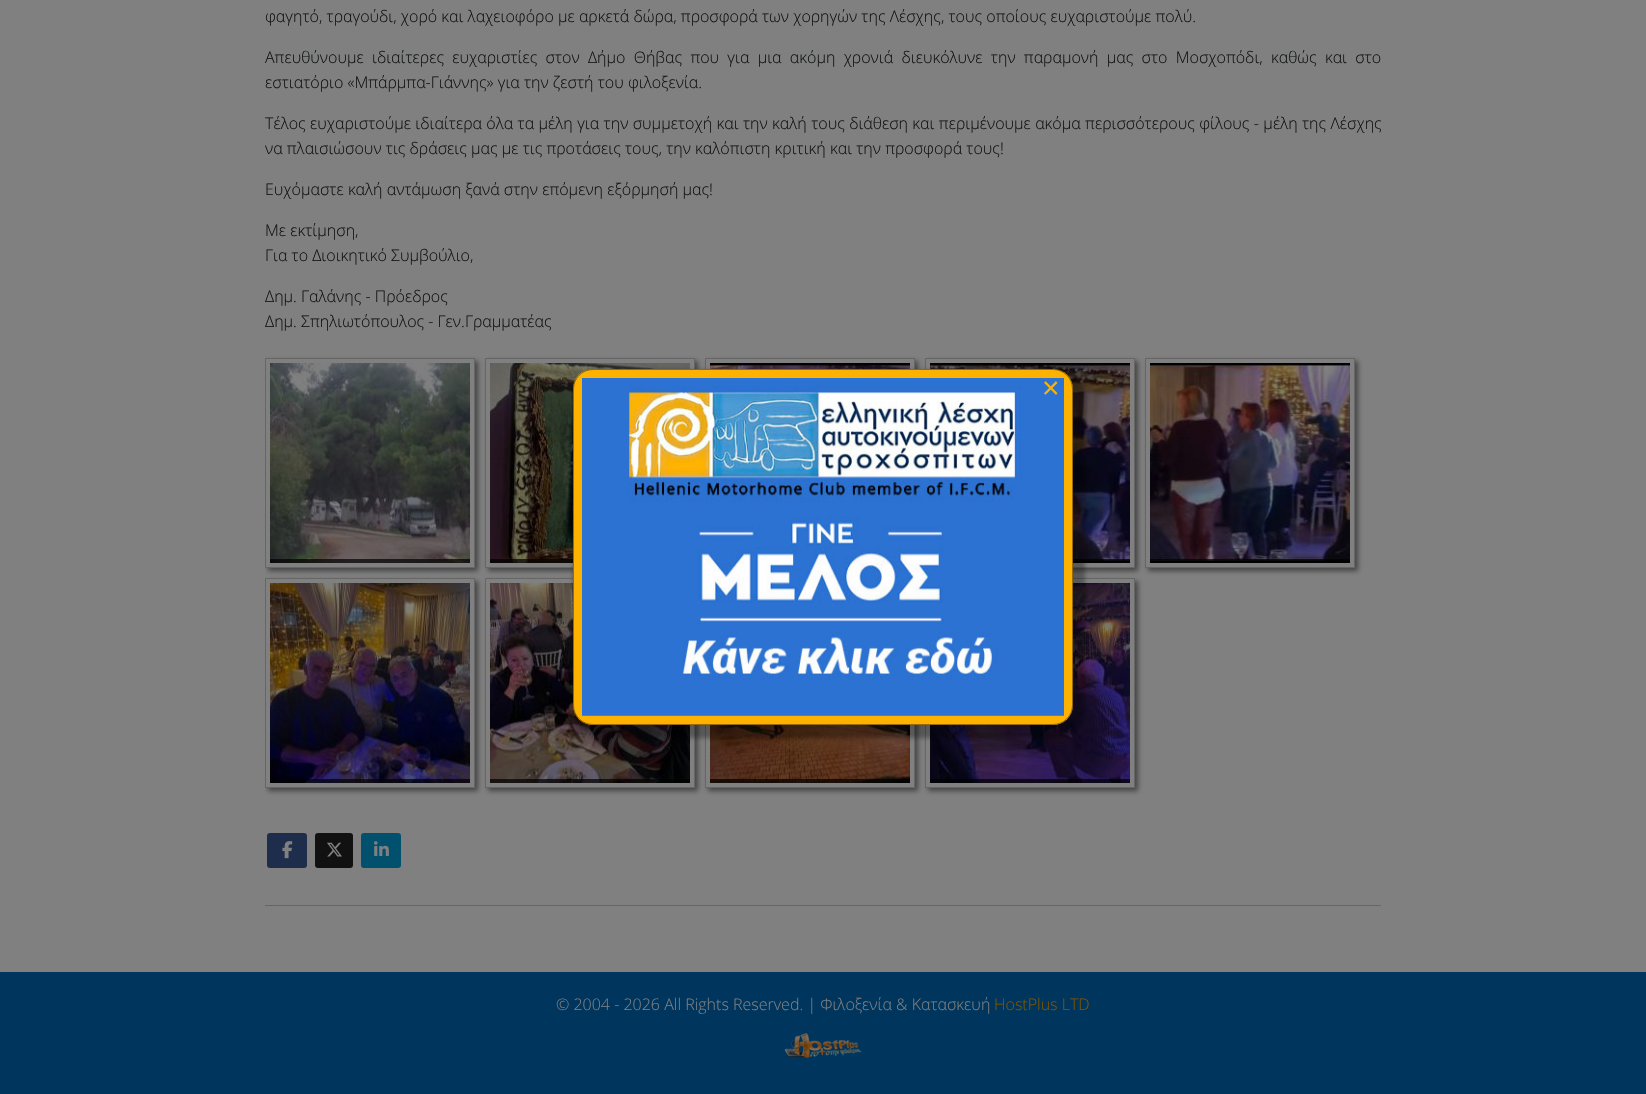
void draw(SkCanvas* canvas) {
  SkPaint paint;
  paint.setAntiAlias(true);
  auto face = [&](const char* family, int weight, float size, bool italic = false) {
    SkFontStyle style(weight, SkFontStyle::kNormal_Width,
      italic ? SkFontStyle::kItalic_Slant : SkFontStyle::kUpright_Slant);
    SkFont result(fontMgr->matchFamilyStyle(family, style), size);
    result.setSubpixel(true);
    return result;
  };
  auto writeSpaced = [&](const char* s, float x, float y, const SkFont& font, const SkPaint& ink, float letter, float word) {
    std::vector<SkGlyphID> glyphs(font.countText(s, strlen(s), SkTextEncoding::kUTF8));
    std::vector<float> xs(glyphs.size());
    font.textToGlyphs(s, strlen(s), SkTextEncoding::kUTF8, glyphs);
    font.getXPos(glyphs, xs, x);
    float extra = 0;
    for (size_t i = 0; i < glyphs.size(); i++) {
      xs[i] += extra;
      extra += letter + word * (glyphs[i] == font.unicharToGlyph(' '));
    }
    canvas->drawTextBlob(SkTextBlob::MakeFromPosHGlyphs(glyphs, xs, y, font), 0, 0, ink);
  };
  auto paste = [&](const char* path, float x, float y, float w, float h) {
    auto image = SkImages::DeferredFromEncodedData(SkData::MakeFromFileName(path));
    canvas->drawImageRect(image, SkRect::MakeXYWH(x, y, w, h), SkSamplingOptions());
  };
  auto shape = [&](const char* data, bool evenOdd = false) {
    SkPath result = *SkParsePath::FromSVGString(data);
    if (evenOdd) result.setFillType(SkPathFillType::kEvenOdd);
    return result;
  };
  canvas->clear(0xff808080);
  canvas->save();
  canvas->clipRect(SkRect::MakeXYWH(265, 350, 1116, 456));
  canvas->clipPath(shape("M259 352H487V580H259ZM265 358H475V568H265Z", true), true);
  paint.setColor(0xff444444);
  paint.setMaskFilter(SkMaskFilter::MakeBlur(kNormal_SkBlurStyle, 2.5f));
  canvas->drawRect(SkRect::MakeXYWH(268, 361, 210, 210), paint);
  paint.setMaskFilter(nullptr);
  canvas->restore();
  paint.setStroke(true);
  paint.setStrokeWidth(1);
  paint.setColor(0xff666666);
  canvas->drawRect(SkRect::MakeXYWH(265.5f, 358.5f, 209, 209), paint);
  paste("img/1.png", 270, 363, 200, 200);
  paint.setStroke(false);
  paint.setColor(0xb3000000);
  canvas->drawRect(SkRect::MakeXYWH(270, 559, 200, 4), paint);
  canvas->save();
  canvas->clipPath(shape("M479 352H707V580H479ZM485 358H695V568H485Z", true), true);
  paint.setColor(0xff444444);
  paint.setMaskFilter(SkMaskFilter::MakeBlur(kNormal_SkBlurStyle, 2.5f));
  canvas->drawRect(SkRect::MakeXYWH(488, 361, 210, 210), paint);
  paint.setMaskFilter(nullptr);
  canvas->restore();
  paint.setStroke(true);
  paint.setColor(0xff666666);
  canvas->drawRect(SkRect::MakeXYWH(485.5f, 358.5f, 209, 209), paint);
  paste("img/2.png", 490, 363, 200, 200);
  paint.setStroke(false);
  paint.setColor(0xb3000000);
  canvas->drawRect(SkRect::MakeXYWH(490, 559, 83, 4), paint);
  canvas->save();
  canvas->clipPath(shape("M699 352H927V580H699ZM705 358H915V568H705Z", true), true);
  paint.setColor(0xff444444);
  paint.setMaskFilter(SkMaskFilter::MakeBlur(kNormal_SkBlurStyle, 2.5f));
  canvas->drawRect(SkRect::MakeXYWH(708, 361, 210, 210), paint);
  paint.setMaskFilter(nullptr);
  canvas->restore();
  paint.setStroke(true);
  paint.setColor(0xff666666);
  canvas->drawRect(SkRect::MakeXYWH(705.5f, 358.5f, 209, 209), paint);
  paste("img/3.png", 710, 363, 200, 6);
  canvas->save();
  canvas->clipPath(shape("M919 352H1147V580H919ZM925 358H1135V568H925Z", true), true);
  paint.setStroke(false);
  paint.setColor(0xff444444);
  paint.setMaskFilter(SkMaskFilter::MakeBlur(kNormal_SkBlurStyle, 2.5f));
  canvas->drawRect(SkRect::MakeXYWH(928, 361, 210, 210), paint);
  paint.setMaskFilter(nullptr);
  canvas->restore();
  paint.setStroke(true);
  paint.setColor(0xff666666);
  canvas->drawRect(SkRect::MakeXYWH(925.5f, 358.5f, 209, 209), paint);
  paste("img/4.png", 930, 363, 200, 200);
  paint.setStroke(false);
  paint.setColor(0xb3000000);
  canvas->drawRect(SkRect::MakeXYWH(1073, 559, 57, 4), paint);
  canvas->save();
  canvas->clipPath(shape("M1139 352H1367V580H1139ZM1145 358H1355V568H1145Z", true), true);
  paint.setColor(0xff444444);
  paint.setMaskFilter(SkMaskFilter::MakeBlur(kNormal_SkBlurStyle, 2.5f));
  canvas->drawRect(SkRect::MakeXYWH(1148, 361, 210, 210), paint);
  paint.setMaskFilter(nullptr);
  canvas->restore();
  paint.setStroke(true);
  paint.setColor(0xff666666);
  canvas->drawRect(SkRect::MakeXYWH(1145.5f, 358.5f, 209, 209), paint);
  paste("img/5.png", 1150, 363, 200, 200);
  paint.setStroke(false);
  paint.setColor(0xb3000000);
  canvas->drawRect(SkRect::MakeXYWH(1150, 559, 200, 4), paint);
  canvas->save();
  canvas->clipRect(SkRect::MakeXYWH(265, 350, 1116, 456));
  canvas->clipPath(shape("M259 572H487V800H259ZM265 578H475V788H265Z", true), true);
  paint.setColor(0xff444444);
  paint.setMaskFilter(SkMaskFilter::MakeBlur(kNormal_SkBlurStyle, 2.5f));
  canvas->drawRect(SkRect::MakeXYWH(268, 581, 210, 210), paint);
  paint.setMaskFilter(nullptr);
  canvas->restore();
  paint.setStroke(true);
  paint.setColor(0xff666666);
  canvas->drawRect(SkRect::MakeXYWH(265.5f, 578.5f, 209, 209), paint);
  paste("img/6.png", 270, 583, 200, 200);
  paint.setStroke(false);
  paint.setColor(0xb3000000);
  canvas->drawRect(SkRect::MakeXYWH(270, 779, 200, 4), paint);
  canvas->save();
  canvas->clipPath(shape("M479 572H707V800H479ZM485 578H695V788H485Z", true), true);
  paint.setColor(0xff444444);
  paint.setMaskFilter(SkMaskFilter::MakeBlur(kNormal_SkBlurStyle, 2.5f));
  canvas->drawRect(SkRect::MakeXYWH(488, 581, 210, 210), paint);
  paint.setMaskFilter(nullptr);
  canvas->restore();
  paint.setStroke(true);
  paint.setColor(0xff666666);
  canvas->drawRect(SkRect::MakeXYWH(485.5f, 578.5f, 209, 209), paint);
  paste("img/7.png", 490, 583, 200, 200);
  paint.setStroke(false);
  paint.setColor(0xb3000000);
  canvas->drawRect(SkRect::MakeXYWH(490, 779, 200, 4), paint);
  canvas->save();
  canvas->clipPath(shape("M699 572H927V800H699ZM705 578H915V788H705Z", true), true);
  paint.setColor(0xff444444);
  paint.setMaskFilter(SkMaskFilter::MakeBlur(kNormal_SkBlurStyle, 2.5f));
  canvas->drawRect(SkRect::MakeXYWH(708, 581, 210, 210), paint);
  paint.setMaskFilter(nullptr);
  canvas->restore();
  paint.setStroke(true);
  paint.setColor(0xff666666);
  canvas->drawRect(SkRect::MakeXYWH(705.5f, 578.5f, 209, 209), paint);
  paste("img/8.png", 710, 725, 200, 58);
  paint.setStroke(false);
  paint.setColor(0xb3000000);
  canvas->drawRect(SkRect::MakeXYWH(710, 779, 200, 4), paint);
  canvas->save();
  canvas->clipPath(shape("M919 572H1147V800H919ZM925 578H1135V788H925Z", true), true);
  paint.setColor(0xff444444);
  paint.setMaskFilter(SkMaskFilter::MakeBlur(kNormal_SkBlurStyle, 2.5f));
  canvas->drawRect(SkRect::MakeXYWH(928, 581, 210, 210), paint);
  paint.setMaskFilter(nullptr);
  canvas->restore();
  paint.setStroke(true);
  paint.setColor(0xff666666);
  canvas->drawRect(SkRect::MakeXYWH(925.5f, 578.5f, 209, 209), paint);
  paste("img/9.png", 930, 583, 200, 200);
  paint.setStroke(false);
  paint.setColor(0xb3000000);
  canvas->drawRect(SkRect::MakeXYWH(930, 779, 200, 4), paint);
  paint.setColor(0xff1e2d4c);
  canvas->drawRoundRect(SkRect::MakeXYWH(267, 833, 40, 35), 3, 3, paint);
  paste("img/10.png", 282, 841, 11, 18);
  paint.setColor(0xff111111);
  canvas->drawRoundRect(SkRect::MakeXYWH(315, 833, 38, 35), 3, 3, paint);
  paste("img/11.png", 327, 842, 15, 15);
  paint.setColor(0xff00506e);
  canvas->drawRoundRect(SkRect::MakeXYWH(361, 833, 40, 35), 3, 3, paint);
  paste("img/12.png", 374, 841, 15, 15);
  paint.setColor(0xff646565);
  canvas->drawRect(SkRect::MakeXYWH(265, 905, 1116, 1), paint);
  paint.setColor(0xff00355d);
  canvas->drawRect(SkRect::MakeXYWH(0, 972, 1646, 122), paint);
  paste("img/13.png", 784, 1033, 78, 25);
  paint.setColor(0x4d000001);
  paint.setMaskFilter(SkMaskFilter::MakeBlur(kNormal_SkBlurStyle, 2));
  canvas->drawRoundRect(SkRect::MakeXYWH(573, 370, 512, 368), 26, 26, paint);
  paint.setMaskFilter(nullptr);
  paint.setColor(0xfffdb202);
  canvas->drawRoundRect(SkRect::MakeXYWH(573, 369, 500, 356), 20, 20, paint);
  paint.setStroke(true);
  paint.setColor(0x66000000);
  canvas->drawRoundRect(SkRect::MakeXYWH(573.5f, 369.5f, 499, 355), 19.5f, 19.5f, paint);
  paste("img/14.png", 582, 378, 482, 338);
  auto f0 = face("Open Sans", 300, 16);
  paint.setStroke(false);
  paint.setColor(0xff111315);
  canvas->drawString("φαγητό, τραγούδι, χορό και λαχειοφόρο με αρκετά δώρα, προσφορά των χορηγών της Λέσχης, τους οποίους ευχαριστούμε πολύ.", 265, 22, f0, paint);
  writeSpaced("Απευθύνουμε ιδιαίτερες ευχαριστίες στον Δήμο Θήβας που για μια ακόμη χρονιά διευκόλυνε την παραμονή μας στο Μοσχοπόδι, καθώς και στο", 265, 63, f0, paint, 0, 4.1f);
  canvas->drawString("εστιατόριο «Μπάρμπα-Γιάννης» για την ζεστή του φιλοξενία.", 265, 88, f0, paint);
  writeSpaced("Τέλος ευχαριστούμε ιδιαίτερα όλα τα μέλη για την συμμετοχή και την καλή τους διάθεση και περιμένουμε ακόμα περισσότερους φίλους - μέλη της Λέσχης", 265, 129, f0, paint, 0, 0.2f);
  {
    const struct { const char* s; float x, y; } items[] = {
      {"να πλαισιώσουν τις δράσεις μας με τις προτάσεις τους, την καλόπιστη κριτική και την προσφορά τους!", 265, 154},
      {"Ευχόμαστε καλή αντάμωση ξανά στην επόμενη εξόρμησή μας!", 265, 195},
      {"Με εκτίμηση,", 265, 236},
      {"Για το Διοικητικό Συμβούλιο,", 265, 261},
      {"Δημ. Γαλάνης - Πρόεδρος", 265, 302},
      {"Δημ. Σπηλιωτόπουλος - Γεν.Γραμματέας", 265, 327},
    };
    for (auto [s, x, y] : items) {
      canvas->drawString(s, x, y, f0, paint);
    }
  }
  paint.setColor(0xff808080);
  canvas->drawString("© 2004 - 2026 All Rights Reserved. | Φιλοξενία & Κατασκευή", 556, 1010, f0, paint);
  paint.setColor(0xff805300);
  canvas->drawString("HostPlus LTD", 994, 1010, f0, paint);
  auto f1 = face("Liberation Sans", 400, 30);
  paint.setColor(0xfffdb202);
  canvas->drawString("×", 1042, 398, f1, paint);
}
